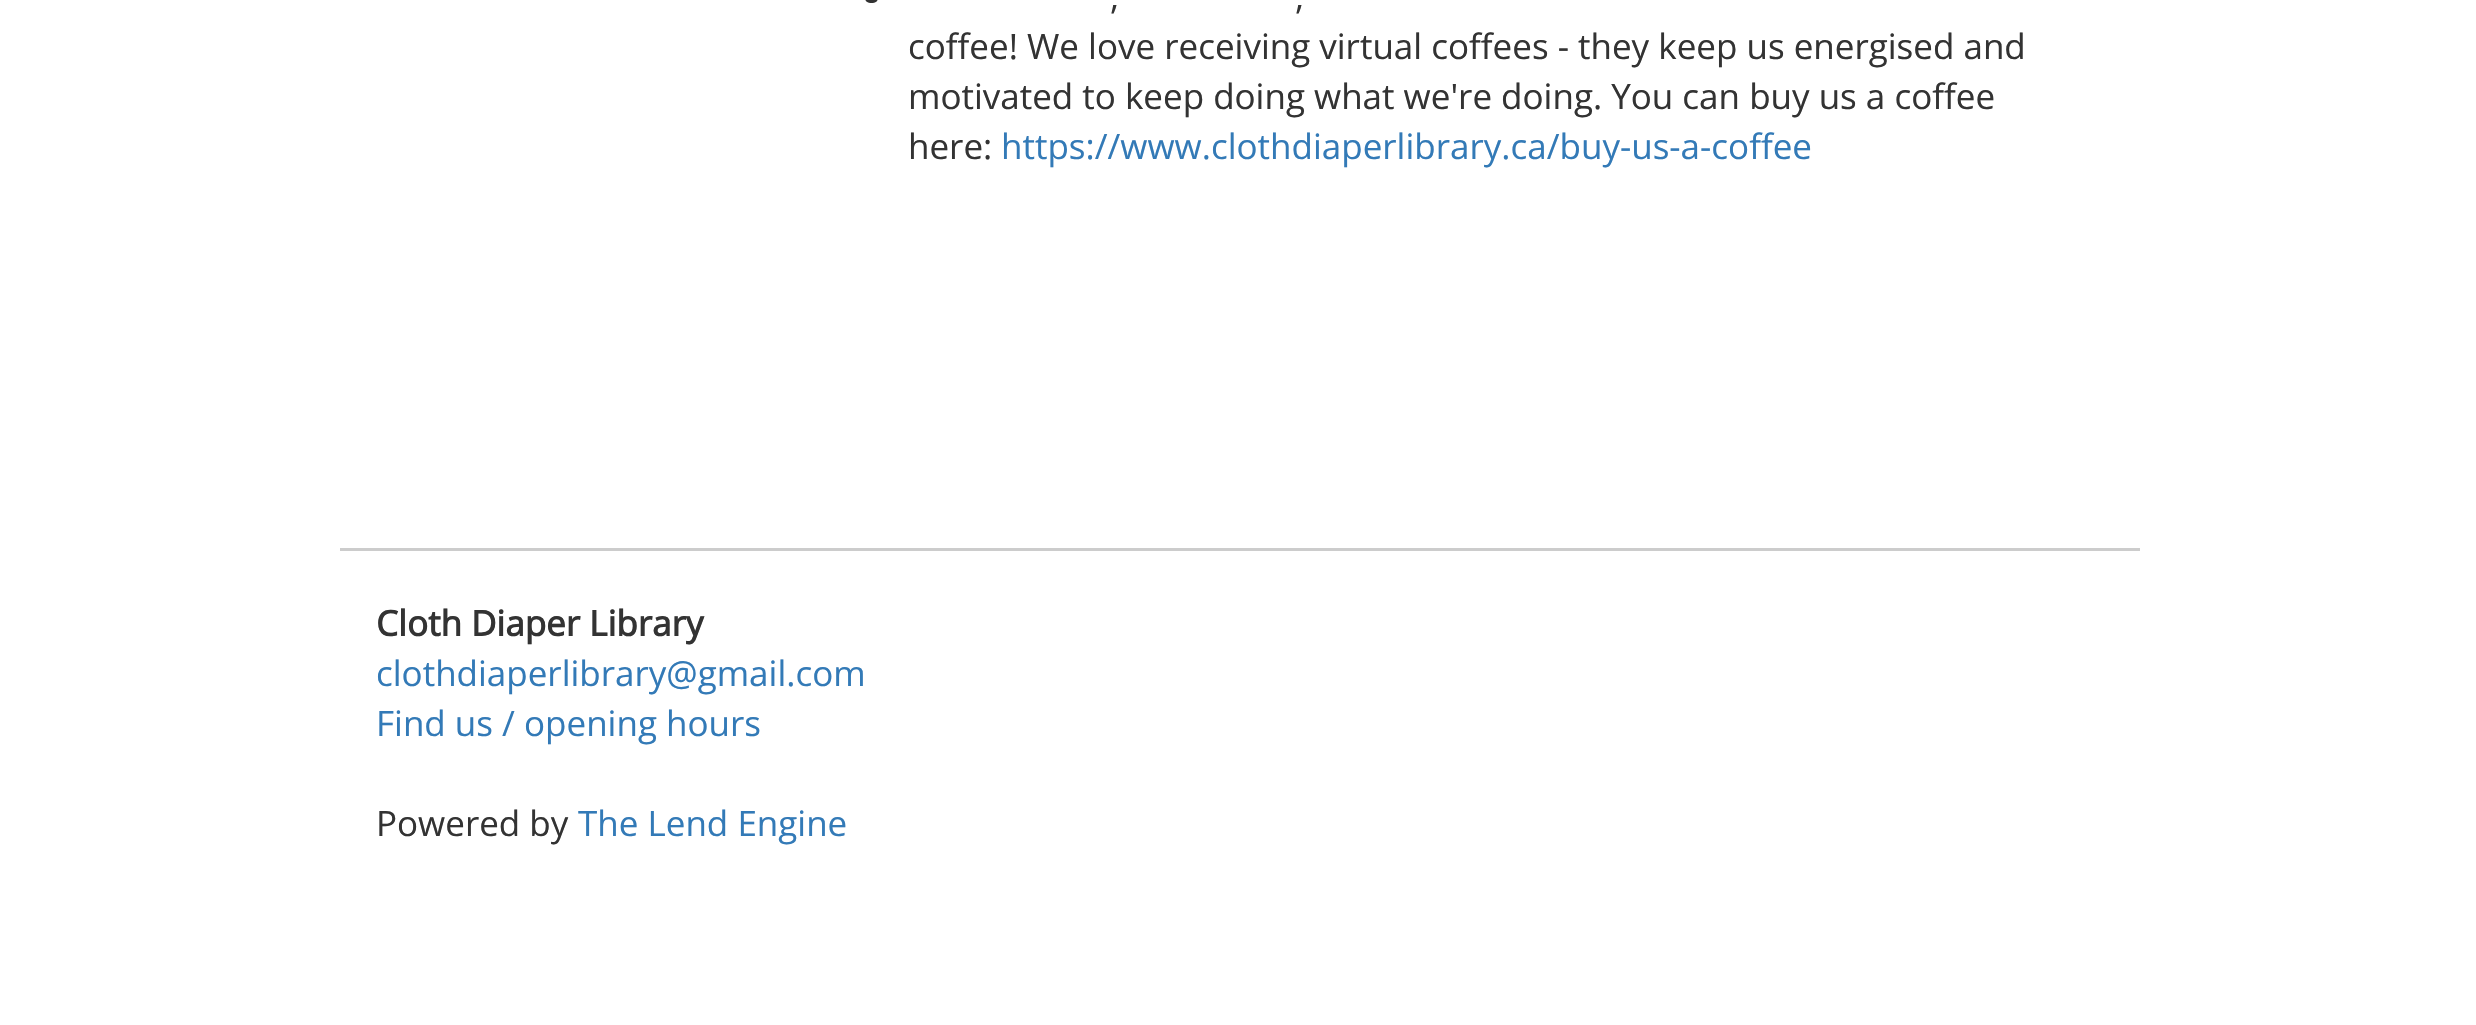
void draw(SkCanvas* canvas) {
  SkPaint paint;
  paint.setAntiAlias(true);
  auto face = [&](const char* family, int weight, float size, bool italic = false) {
    SkFontStyle style(weight, SkFontStyle::kNormal_Width,
      italic ? SkFontStyle::kItalic_Slant : SkFontStyle::kUpright_Slant);
    SkFont result(fontMgr->matchFamilyStyle(family, style), size);
    result.setSubpixel(true);
    return result;
  };
  canvas->clear(0xffffffff);
  paint.setColor(0xff333333);
  canvas->drawRoundRect(SkRect::MakeXYWH(865, -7, 13, 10), 6.5f, 6.5f, paint);
  paint.setColor(0xffcccccc);
  canvas->drawRect(SkRect::MakeXYWH(340, 548, 1800, 3), paint);
  auto f0 = face("Open Sans", 400, 35);
  paint.setColor(0xff333333);
  {
    const struct { const char* s; float x, y; } items[] = {
      {",", 1110, 9},
      {",", 1295, 9},
      {"coffee! We love receiving virtual coffees - they keep us energised and", 908, 59},
      {"motivated to keep doing what we're doing. You can buy us a coffee", 908, 109},
      {"here:", 908, 159},
    };
    for (auto [s, x, y] : items) {
      canvas->drawString(s, x, y, f0, paint);
    }
  }
  paint.setColor(0xff337ab7);
  canvas->drawString("https://www.clothdiaperlibrary.ca/buy-us-a-coffee", 1001, 159, f0, paint);
  auto f1 = face("Open Sans", 700, 35);
  paint.setColor(0xff333333);
  canvas->drawString("Cloth Diaper Library", 376, 636, f1, paint);
  paint.setColor(0xff337ab7);
  canvas->drawString("clothdiaperlibrary@gmail.com", 376, 686, f0, paint);
  canvas->drawString("Find us / opening hours", 376, 736, f0, paint);
  paint.setColor(0xff333333);
  canvas->drawString("Powered by", 376, 836, f0, paint);
  paint.setColor(0xff337ab7);
  canvas->drawString("The Lend Engine", 578, 836, f0, paint);
}
